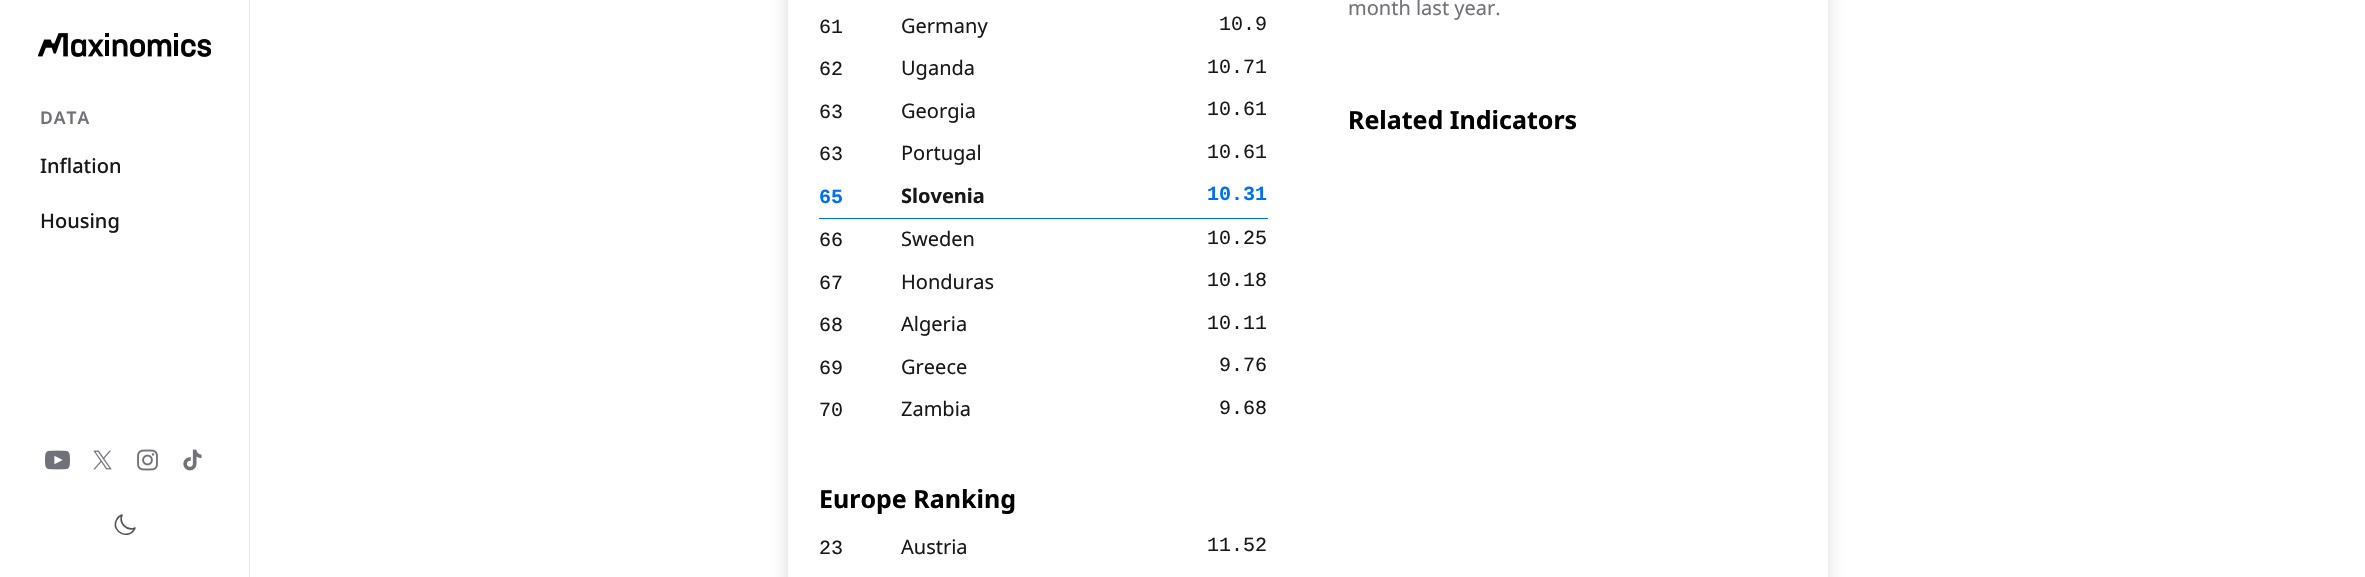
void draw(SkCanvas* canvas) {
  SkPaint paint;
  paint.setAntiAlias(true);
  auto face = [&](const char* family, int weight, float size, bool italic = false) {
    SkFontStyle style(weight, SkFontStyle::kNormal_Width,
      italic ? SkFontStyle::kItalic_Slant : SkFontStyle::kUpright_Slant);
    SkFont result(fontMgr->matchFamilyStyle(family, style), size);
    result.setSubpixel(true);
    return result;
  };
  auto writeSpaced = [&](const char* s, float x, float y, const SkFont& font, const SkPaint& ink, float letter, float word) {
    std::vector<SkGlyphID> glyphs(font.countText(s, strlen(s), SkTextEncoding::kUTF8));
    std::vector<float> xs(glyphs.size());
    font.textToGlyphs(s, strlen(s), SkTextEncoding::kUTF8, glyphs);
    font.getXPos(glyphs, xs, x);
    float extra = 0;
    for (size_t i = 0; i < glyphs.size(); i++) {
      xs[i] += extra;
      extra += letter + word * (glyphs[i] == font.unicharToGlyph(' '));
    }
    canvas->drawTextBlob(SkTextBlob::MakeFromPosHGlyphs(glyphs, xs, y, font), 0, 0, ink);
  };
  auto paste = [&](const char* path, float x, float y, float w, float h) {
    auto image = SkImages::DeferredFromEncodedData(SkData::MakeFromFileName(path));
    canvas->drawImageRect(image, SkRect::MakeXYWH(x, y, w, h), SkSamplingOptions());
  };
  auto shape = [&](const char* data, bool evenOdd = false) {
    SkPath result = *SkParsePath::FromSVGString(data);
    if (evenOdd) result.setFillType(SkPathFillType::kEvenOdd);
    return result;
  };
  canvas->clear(0xffffffff);
  paint.setColor(0xffe4e4e7);
  canvas->drawRect(SkRect::MakeXYWH(249, 0, 1, 577), paint);
  paste("img/1.png", 38, 33, 173, 24);
  paste("img/2.png", 45, 450, 25, 20);
  paste("img/3.png", 93, 450, 19, 20);
  paste("img/4.png", 137, 449, 21, 22);
  paste("img/5.png", 183, 449, 19, 22);
  paint.setStroke(true);
  paint.setStrokeWidth(1.6f);
  paint.setStrokeCap(SkPaint::kRound_Cap);
  paint.setStrokeJoin(SkPaint::kRound_Join);
  paint.setColor(0xff52525b);
  canvas->drawPath(shape("M135 528C127 531.5 118.5 523 122 515C119.5 516 117.5 517.5 116.5 520C110.5 532.5 130 540.5 135 528Z"), paint);
  paint.setStroke(false);
  paint.setColor(0x33000000);
  paint.setMaskFilter(SkMaskFilter::MakeBlur(kNormal_SkBlurStyle, 9.5f));
  canvas->drawRoundRect(SkRect::MakeXYWH(791, -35, 1033, 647), 6, 6, paint);
  paint.setMaskFilter(nullptr);
  paint.setColor(0xffffffff);
  canvas->drawRect(SkRect::MakeXYWH(788, 0, 1040, 577), paint);
  paint.setColor(0xff0070f3);
  canvas->drawRect(SkRect::MakeXYWH(819, 218, 449, 1), paint);
  auto f0 = face("Noto Sans", 600, 17.5f);
  paint.setColor(0xff71717a);
  writeSpaced("DATA", 40, 124, f0, paint, 1, 0);
  auto f1 = face("Noto Sans", 500, 20);
  paint.setColor(0xff18181b);
  canvas->drawString("Inflation", 40, 173, f1, paint);
  canvas->drawString("Housing", 40, 228, f1, paint);
  auto f2 = face("Liberation Mono", 400, 20);
  canvas->drawString("61", 819, 33, f2, paint);
  auto f3 = face("Noto Sans", 400, 20);
  canvas->drawString("Germany", 901, 33, f3, paint);
  canvas->drawString("10.9", 1219, 30, f2, paint);
  canvas->drawString("62", 819, 75, f2, paint);
  canvas->drawString("Uganda", 901, 75, f3, paint);
  canvas->drawString("10.71", 1207, 73, f2, paint);
  canvas->drawString("63", 819, 118, f2, paint);
  canvas->drawString("Georgia", 901, 118, f3, paint);
  canvas->drawString("10.61", 1207, 115, f2, paint);
  canvas->drawString("63", 819, 160, f2, paint);
  canvas->drawString("Portugal", 901, 160, f3, paint);
  canvas->drawString("10.61", 1207, 158, f2, paint);
  auto f4 = face("Liberation Mono", 700, 20);
  paint.setColor(0xff0070f3);
  canvas->drawString("65", 819, 203, f4, paint);
  auto f5 = face("Noto Sans", 700, 20);
  paint.setColor(0xff18181b);
  canvas->drawString("Slovenia", 901, 203, f5, paint);
  paint.setColor(0xff0070f3);
  canvas->drawString("10.31", 1207, 200, f4, paint);
  paint.setColor(0xff18181b);
  canvas->drawString("66", 819, 246, f2, paint);
  canvas->drawString("Sweden", 901, 246, f3, paint);
  canvas->drawString("10.25", 1207, 244, f2, paint);
  canvas->drawString("67", 819, 289, f2, paint);
  canvas->drawString("Honduras", 901, 289, f3, paint);
  canvas->drawString("10.18", 1207, 286, f2, paint);
  canvas->drawString("68", 819, 331, f2, paint);
  canvas->drawString("Algeria", 901, 331, f3, paint);
  canvas->drawString("10.11", 1207, 329, f2, paint);
  canvas->drawString("69", 819, 374, f2, paint);
  canvas->drawString("Greece", 901, 374, f3, paint);
  canvas->drawString("9.76", 1219, 371, f2, paint);
  canvas->drawString("70", 819, 416, f2, paint);
  canvas->drawString("Zambia", 901, 416, f3, paint);
  canvas->drawString("9.68", 1219, 414, f2, paint);
  auto f6 = face("Noto Sans", 700, 25);
  paint.setColor(0xff000000);
  canvas->drawString("Europe Ranking", 819, 508, f6, paint);
  paint.setColor(0xff18181b);
  canvas->drawString("23", 819, 554, f2, paint);
  canvas->drawString("Austria", 901, 554, f3, paint);
  canvas->drawString("11.52", 1207, 551, f2, paint);
  paint.setColor(0xff71717a);
  canvas->drawString("month last year.", 1348, 15, f3, paint);
  paint.setColor(0xff000000);
  canvas->drawString("Related Indicators", 1348, 129, f6, paint);
}
